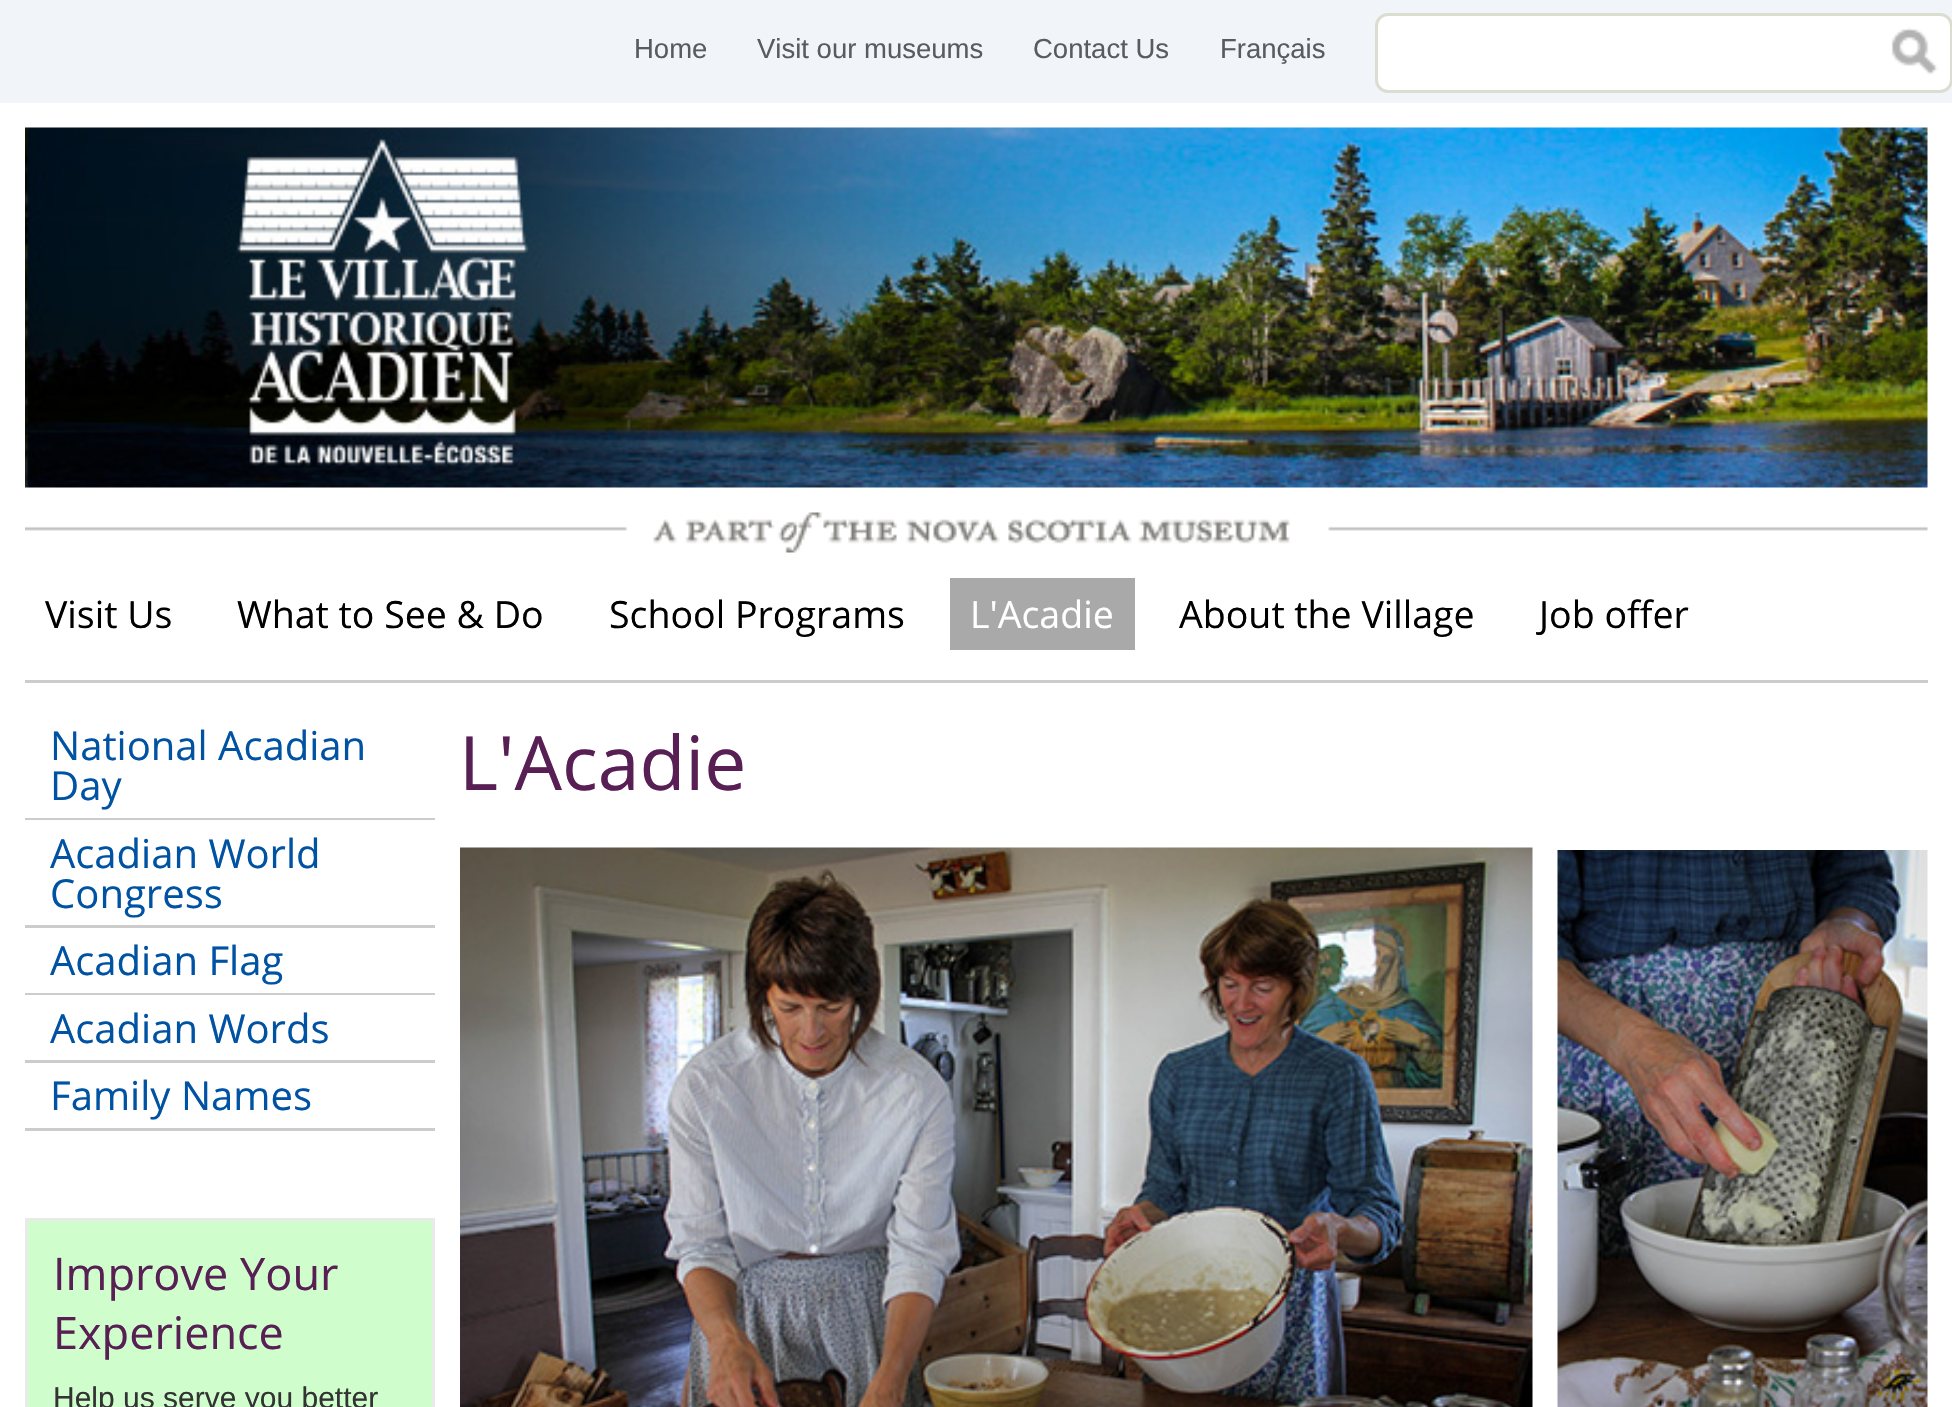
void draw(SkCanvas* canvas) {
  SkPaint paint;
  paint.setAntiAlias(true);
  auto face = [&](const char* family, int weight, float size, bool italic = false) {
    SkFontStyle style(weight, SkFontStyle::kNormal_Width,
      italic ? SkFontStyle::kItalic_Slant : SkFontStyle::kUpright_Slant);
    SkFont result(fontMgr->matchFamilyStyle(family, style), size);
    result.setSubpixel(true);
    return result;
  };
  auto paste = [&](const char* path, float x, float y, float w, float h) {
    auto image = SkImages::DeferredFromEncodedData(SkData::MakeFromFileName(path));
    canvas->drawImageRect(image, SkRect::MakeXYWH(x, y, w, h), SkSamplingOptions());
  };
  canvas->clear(0xffffffff);
  paint.setColor(0xfff1f4f8);
  canvas->drawRect(SkRect::MakeXYWH(0, 0, 1952, 103), paint);
  paint.setColor(0xffffffff);
  canvas->drawRoundRect(SkRect::MakeXYWH(1376.5f, 14.5f, 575, 77), 11.5f, 11.5f, paint);
  paint.setStroke(true);
  paint.setStrokeWidth(3);
  paint.setColor(0xffdaddcf);
  canvas->drawRoundRect(SkRect::MakeXYWH(1376.5f, 14.5f, 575, 77), 11.5f, 11.5f, paint);
  paste("img/1.png", 1891, 27, 47, 48);
  paste("img/2.png", 25, 127, 1903, 361);
  paste("img/3.png", 25, 512, 1903, 41);
  paint.setStroke(false);
  {
    const struct { float x, y, w, h; SkColor color; } items[] = {
      {25, 680, 1903, 3, 0xffcccccc},
      {950, 578, 185, 72, 0xffa9a9a9},
      {25, 818, 410, 2, 0xffcccccc},
      {25, 925, 410, 3, 0xffcccccc},
      {25, 993, 410, 2, 0xffcccccc},
      {25, 1060, 410, 3, 0xffcccccc},
      {25, 1128, 410, 3, 0xffcccccc},
    };
    for (auto [x, y, w, h, color] : items) {
      paint.setColor(color);
      canvas->drawRect(SkRect::MakeXYWH(x, y, w, h), paint);
    }
  }
  paint.setColor(0xffcffecc);
  canvas->drawRect(SkRect::MakeXYWH(26.5f, 1219.5f, 407, 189), paint);
  paint.setStroke(true);
  paint.setColor(0xffeaeae9);
  canvas->drawRect(SkRect::MakeXYWH(26.5f, 1219.5f, 407, 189), paint);
  paste("img/4.png", 460, 847, 1073, 560);
  paste("img/5.png", 1557, 850, 371, 557);
  auto f0 = face("Liberation Sans", 400, 27.5f);
  paint.setStroke(false);
  paint.setColor(0xff5a5b5f);
  {
    const struct { const char* s; float x, y; } items[] = {
      {"Home", 634, 58},
      {"Visit our museums", 757, 58},
      {"Contact Us", 1033, 58},
      {"Français", 1220, 58},
    };
    for (auto [s, x, y] : items) {
      canvas->drawString(s, x, y, f0, paint);
    }
  }
  auto f1 = face("Open Sans", 400, 37.5f);
  paint.setColor(0xff000000);
  {
    const struct { const char* s; float x, y; } items[] = {
      {"Visit Us", 45, 628},
      {"What to See & Do", 237, 628},
      {"School Programs", 609, 628},
    };
    for (auto [s, x, y] : items) {
      canvas->drawString(s, x, y, f1, paint);
    }
  }
  paint.setColor(0xffffffff);
  canvas->drawString("L'Acadie", 970, 628, f1, paint);
  paint.setColor(0xff000000);
  canvas->drawString("About the Village", 1179, 628, f1, paint);
  canvas->drawString("Job offer", 1539, 628, f1, paint);
  auto f2 = face("Open Sans", 400, 40);
  paint.setColor(0xff0052a3);
  {
    const struct { const char* s; float x, y; } items[] = {
      {"National Acadian", 50, 760},
      {"Day", 50, 800},
      {"Acadian World", 50, 868},
      {"Congress", 50, 908},
      {"Acadian Flag", 50, 975},
      {"Acadian Words", 50, 1043},
      {"Family Names", 50, 1110},
    };
    for (auto [s, x, y] : items) {
      canvas->drawString(s, x, y, f2, paint);
    }
  }
  auto f3 = face("Open Sans", 400, 45);
  paint.setColor(0xff581f54);
  canvas->drawString("Improve Your", 53, 1290, f3, paint);
  canvas->drawString("Experience", 53, 1349, f3, paint);
  auto f4 = face("Liberation Sans", 400, 30);
  paint.setColor(0xff333333);
  canvas->drawString("Help us serve you better", 53, 1408, f4, paint);
  auto f5 = face("Open Sans", 400, 75);
  paint.setColor(0xff581f54);
  canvas->drawString("L'Acadie", 459, 790, f5, paint);
}
